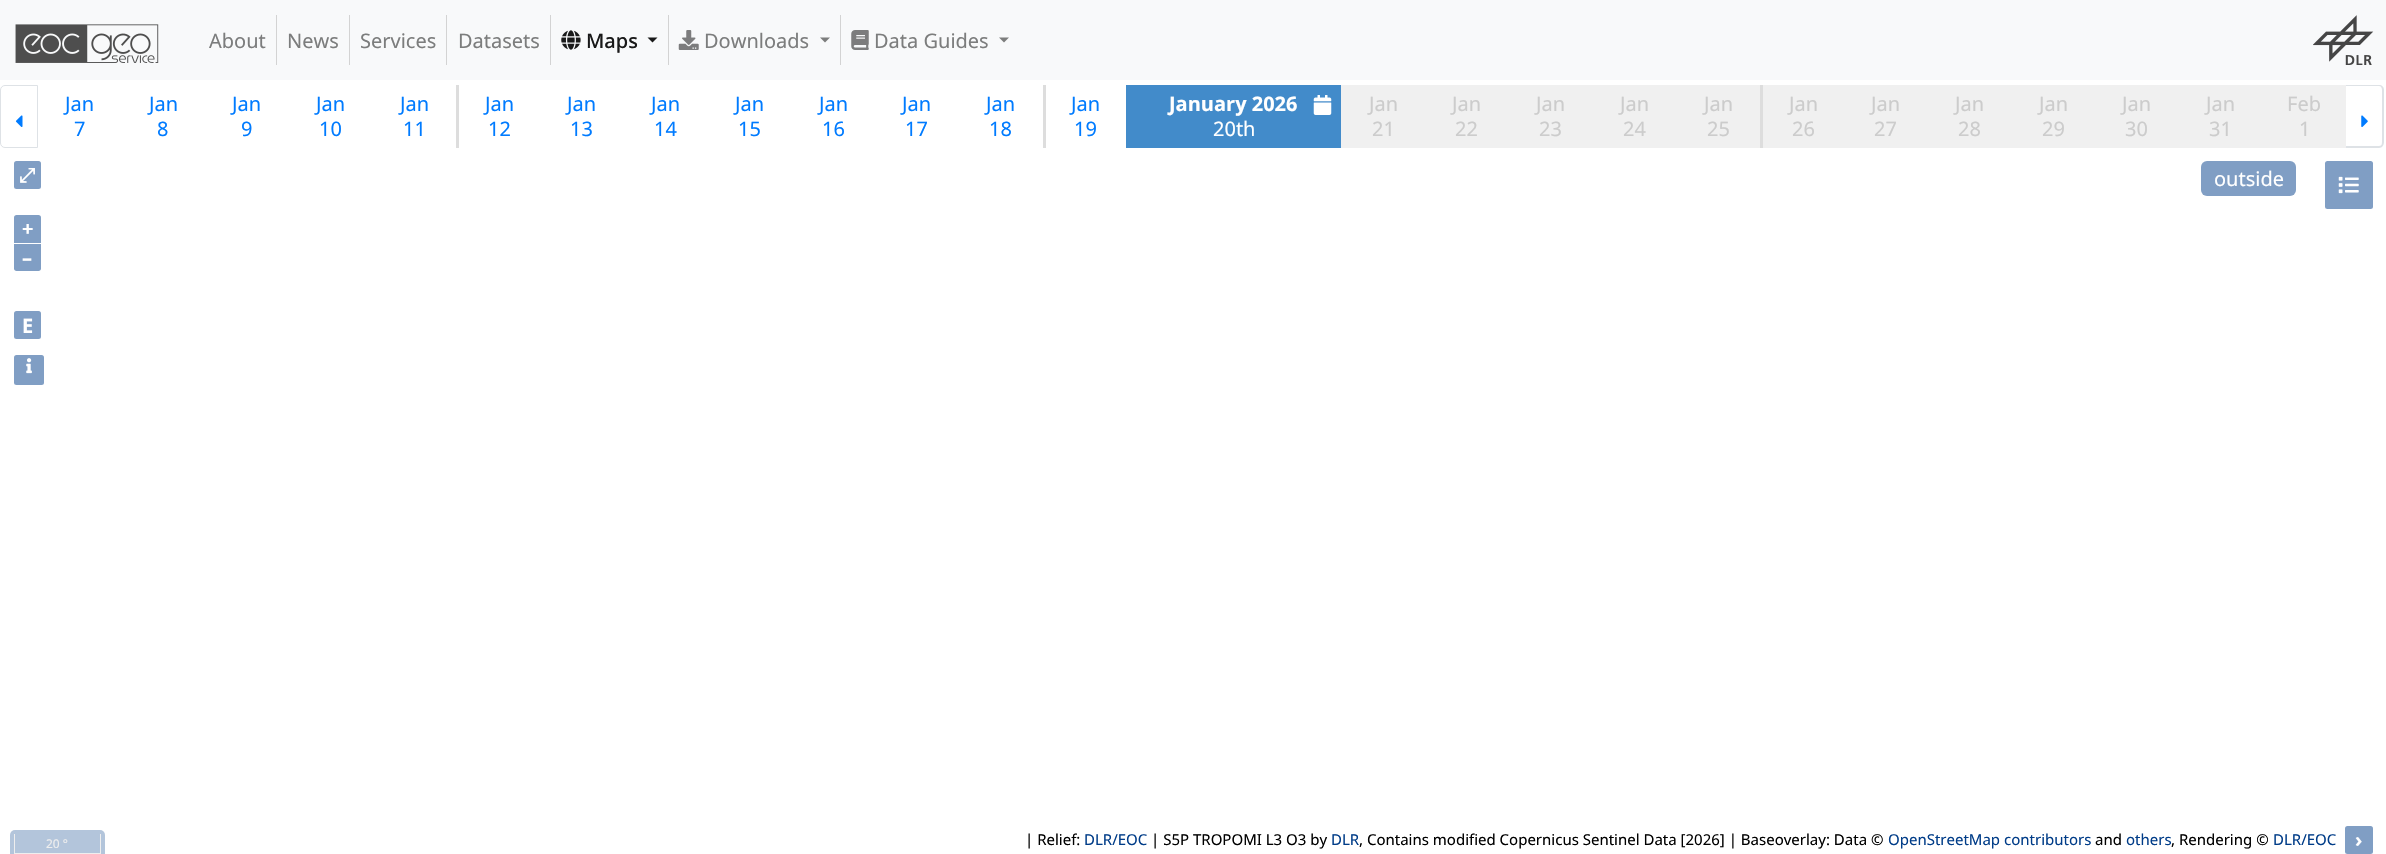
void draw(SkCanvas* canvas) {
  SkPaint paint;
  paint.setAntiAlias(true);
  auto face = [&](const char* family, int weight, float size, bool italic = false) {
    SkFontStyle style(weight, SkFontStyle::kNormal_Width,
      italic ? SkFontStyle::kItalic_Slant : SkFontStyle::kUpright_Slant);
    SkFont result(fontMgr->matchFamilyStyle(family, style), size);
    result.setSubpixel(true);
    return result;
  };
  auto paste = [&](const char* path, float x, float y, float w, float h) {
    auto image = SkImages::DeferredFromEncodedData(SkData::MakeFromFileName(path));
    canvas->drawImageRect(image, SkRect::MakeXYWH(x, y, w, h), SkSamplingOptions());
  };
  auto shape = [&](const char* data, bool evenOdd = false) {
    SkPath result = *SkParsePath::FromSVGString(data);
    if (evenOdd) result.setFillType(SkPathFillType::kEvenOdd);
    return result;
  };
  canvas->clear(0xffffffff);
  paint.setColor(0xfff8f9fa);
  canvas->drawRect(SkRect::MakeXYWH(0, 0, 2386, 80), paint);
  paste("img/1.png", 15, 24, 144, 39);
  {
    const struct { float x, y, w, h; SkColor color; } items[] = {
      {276, 15, 1, 50, 0xffd3d3d3},
      {349, 15, 1, 50, 0xffd3d3d3},
      {446, 15, 1, 50, 0xffd3d3d3},
      {550, 15, 1, 50, 0xffd3d3d3},
      {668, 15, 1, 50, 0xffd3d3d3},
    };
    for (auto [x, y, w, h, color] : items) {
      paint.setColor(color);
      canvas->drawRect(SkRect::MakeXYWH(x, y, w, h), paint);
    }
  }
  paste("img/2.png", 561, 30, 20, 20);
  paint.setColor(0xff191919);
  canvas->drawPath(shape("M647.5 37.5H657.5L652.5 42.5Z"), paint);
  paint.setColor(0xffd3d3d3);
  canvas->drawRect(SkRect::MakeXYWH(840, 15, 1, 50), paint);
  paste("img/3.png", 678, 30, 21, 20);
  paint.setColor(0xff7c7d7d);
  canvas->drawPath(shape("M820 37.5H830L825 42.5Z"), paint);
  paste("img/4.png", 851, 30, 18, 20);
  canvas->drawPath(shape("M999 37.5H1009L1004 42.5Z"), paint);
  paste("img/5.png", 2313, 15, 61, 50);
  paint.setStroke(true);
  paint.setStrokeWidth(1);
  paint.setColor(0xffdee2e6);
  canvas->drawPath(shape("M5 85.5H37.5V147.5H5C2.5 147.5 .5 145.5 .5 143V90C.5 87.5 2.5 85.5 5 85.5Z"), paint);
  paste("img/6.png", 15, 115, 8, 12);
  paint.setStroke(false);
  {
    const struct { float x, y, w, h; SkColor color; } items[] = {
      {456, 85, 3, 63, 0xffdddddd},
      {1043, 85, 3, 63, 0xffdddddd},
      {1126, 85, 215, 63, 0xff428bca},
    };
    for (auto [x, y, w, h, color] : items) {
      paint.setColor(color);
      canvas->drawRect(SkRect::MakeXYWH(x, y, w, h), paint);
    }
  }
  paste("img/7.png", 1313, 95, 19, 20);
  {
    const struct { float x, y, w, h; SkColor color; } items[] = {
      {1341, 85, 419, 63, 0xfff0f0f0},
      {1763, 85, 583, 63, 0xfff0f0f0},
      {1760, 85, 3, 63, 0xffdddddd},
    };
    for (auto [x, y, w, h, color] : items) {
      paint.setColor(color);
      canvas->drawRect(SkRect::MakeXYWH(x, y, w, h), paint);
    }
  }
  paint.setColor(0xffdee2e6);
  canvas->drawPath(shape("M2346 85H2379C2382 85 2384 87 2384 90V142C2384 145 2382 148 2379 148H2346ZM2346 86H2379C2381 86 2382 88 2382 90V142C2382 145 2381 146 2379 146H2346Z", true), paint);
  paste("img/8.png", 2361, 115, 7, 12);
  paint.setColor(0xff809ec4);
  canvas->drawRoundRect(SkRect::MakeXYWH(14, 161, 27, 28), 2.5f, 2.5f, paint);
  canvas->drawRoundRect(SkRect::MakeXYWH(2201, 161, 95, 35), 6, 6, paint);
  canvas->drawRoundRect(SkRect::MakeXYWH(2325, 161, 48, 48), 2.5f, 2.5f, paint);
  paste("img/9.png", 2338, 176, 21, 18);
  canvas->drawPath(shape("M16.5 215H38.5C40 215 41 216 41 217.5V243H14V217.5C14 216 15 215 16.5 215Z"), paint);
  canvas->drawPath(shape("M14 244H41V268.5C41 270 40 271 38.5 271H16.5C15 271 14 270 14 268.5Z"), paint);
  canvas->drawRoundRect(SkRect::MakeXYWH(14, 311, 27, 28), 2.5f, 2.5f, paint);
  canvas->drawRoundRect(SkRect::MakeXYWH(14, 355, 30, 30), 2.5f, 2.5f, paint);
  paste("img/10.png", 26, 358, 6, 16);
  paint.setColor(0xffb3c5db);
  canvas->drawRoundRect(SkRect::MakeXYWH(10, 830, 95, 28), 5, 5, paint);
  {
    const struct { float x, y, w, h; SkColor color; } items[] = {
      {100, 834, 1, 20, 0xffeeeeee},
      {14, 853, 87, 1, 0xffeeeeee},
      {14, 834, 1, 20, 0xffeeeeee},
    };
    for (auto [x, y, w, h, color] : items) {
      paint.setColor(color);
      canvas->drawRect(SkRect::MakeXYWH(x, y, w, h), paint);
    }
  }
  paint.setColor(0xff809ec4);
  canvas->drawRoundRect(SkRect::MakeXYWH(2345, 826, 28, 28), 2.5f, 2.5f, paint);
  auto f0 = face("Noto Sans", 400, 20);
  paint.setColor(0xff7c7d7d);
  {
    const struct { const char* s; float x, y; } items[] = {
      {"About", 209, 48},
      {"News", 287, 48},
      {"Services", 360, 48},
      {"Datasets", 458, 48},
    };
    for (auto [s, x, y] : items) {
      canvas->drawString(s, x, y, f0, paint);
    }
  }
  auto f1 = face("Noto Sans", 500, 20);
  paint.setColor(0xff191919);
  canvas->drawString("Maps", 586, 48, f1, paint);
  paint.setColor(0xff7c7d7d);
  canvas->drawString("Downloads", 704, 48, f0, paint);
  canvas->drawString("Data Guides", 874, 48, f0, paint);
  paint.setColor(0xff007bff);
  {
    const struct { const char* s; float x, y; } items[] = {
      {"Jan", 65, 111},
      {"7", 74, 136},
      {"Jan", 149, 111},
      {"8", 157, 136},
      {"Jan", 232, 111},
      {"9", 241, 136},
      {"Jan", 316, 111},
      {"10", 319, 136},
      {"Jan", 400, 111},
      {"11", 403, 136},
      {"Jan", 485, 111},
      {"12", 488, 136},
      {"Jan", 567, 111},
      {"13", 570, 136},
      {"Jan", 651, 111},
      {"14", 654, 136},
      {"Jan", 735, 111},
      {"15", 738, 136},
      {"Jan", 819, 111},
      {"16", 822, 136},
      {"Jan", 902, 111},
      {"17", 905, 136},
      {"Jan", 986, 111},
      {"18", 989, 136},
      {"Jan", 1071, 111},
      {"19", 1074, 136},
    };
    for (auto [s, x, y] : items) {
      canvas->drawString(s, x, y, f0, paint);
    }
  }
  auto f2 = face("Noto Sans", 700, 20);
  paint.setColor(0xffffffff);
  canvas->drawString("January 2026", 1169, 111, f2, paint);
  canvas->drawString("20th", 1213, 136, f0, paint);
  paint.setColor(0xffcccccc);
  {
    const struct { const char* s; float x, y; } items[] = {
      {"Jan", 1369, 111},
      {"21", 1372, 136},
      {"Jan", 1452, 111},
      {"22", 1455, 136},
      {"Jan", 1536, 111},
      {"23", 1539, 136},
      {"Jan", 1620, 111},
      {"24", 1623, 136},
      {"Jan", 1704, 111},
      {"25", 1707, 136},
      {"Jan", 1789, 111},
      {"26", 1792, 136},
      {"Jan", 1871, 111},
      {"27", 1874, 136},
      {"Jan", 1955, 111},
      {"28", 1958, 136},
      {"Jan", 2039, 111},
      {"29", 2042, 136},
      {"Jan", 2122, 111},
      {"30", 2125, 136},
      {"Jan", 2206, 111},
      {"31", 2209, 136},
      {"Feb", 2287, 111},
      {"1", 2299, 136},
    };
    for (auto [s, x, y] : items) {
      canvas->drawString(s, x, y, f0, paint);
    }
  }
  auto f3 = face("FreeSerif", 700, 20);
  paint.setColor(0xffffffff);
  canvas->drawString("⤢", 19, 182, f3, paint);
  canvas->drawString("outside", 2214, 186, f0, paint);
  {
    const struct { const char* s; float x, y; } items[] = {
      {"+", 22, 236},
      {"–", 22, 265},
      {"E", 22, 333},
    };
    for (auto [s, x, y] : items) {
      canvas->drawString(s, x, y, f2, paint);
    }
  }
  auto f4 = face("Noto Sans", 400, 12);
  paint.setColor(0xffeeeeee);
  canvas->drawString("20 °", 46, 848, f4, paint);
  auto f5 = face("Noto Sans", 400, 15);
  paint.setColor(0xff000000);
  canvas->drawString("| Relief:", 1025, 845, f5, paint);
  paint.setColor(0xff003c88);
  canvas->drawString("DLR/EOC", 1084, 845, f5, paint);
  paint.setColor(0xff000000);
  canvas->drawString("| S5P TROPOMI L3 O3 by", 1151, 845, f5, paint);
  paint.setColor(0xff003c88);
  canvas->drawString("DLR", 1331, 845, f5, paint);
  paint.setColor(0xff000000);
  canvas->drawString(", Contains modified Copernicus Sentinel Data [2026] | Baseoverlay: Data ©", 1359, 845, f5, paint);
  paint.setColor(0xff003c88);
  canvas->drawString("OpenStreetMap contributors", 1888, 845, f5, paint);
  paint.setColor(0xff000000);
  canvas->drawString("and", 2095, 845, f5, paint);
  paint.setColor(0xff003c88);
  canvas->drawString("others", 2126, 845, f5, paint);
  paint.setColor(0xff000000);
  canvas->drawString(", Rendering ©", 2171, 845, f5, paint);
  paint.setColor(0xff003c88);
  canvas->drawString("DLR/EOC", 2273, 845, f5, paint);
  paint.setColor(0xffffffff);
  canvas->drawString("›", 2355, 847, f2, paint);
}
